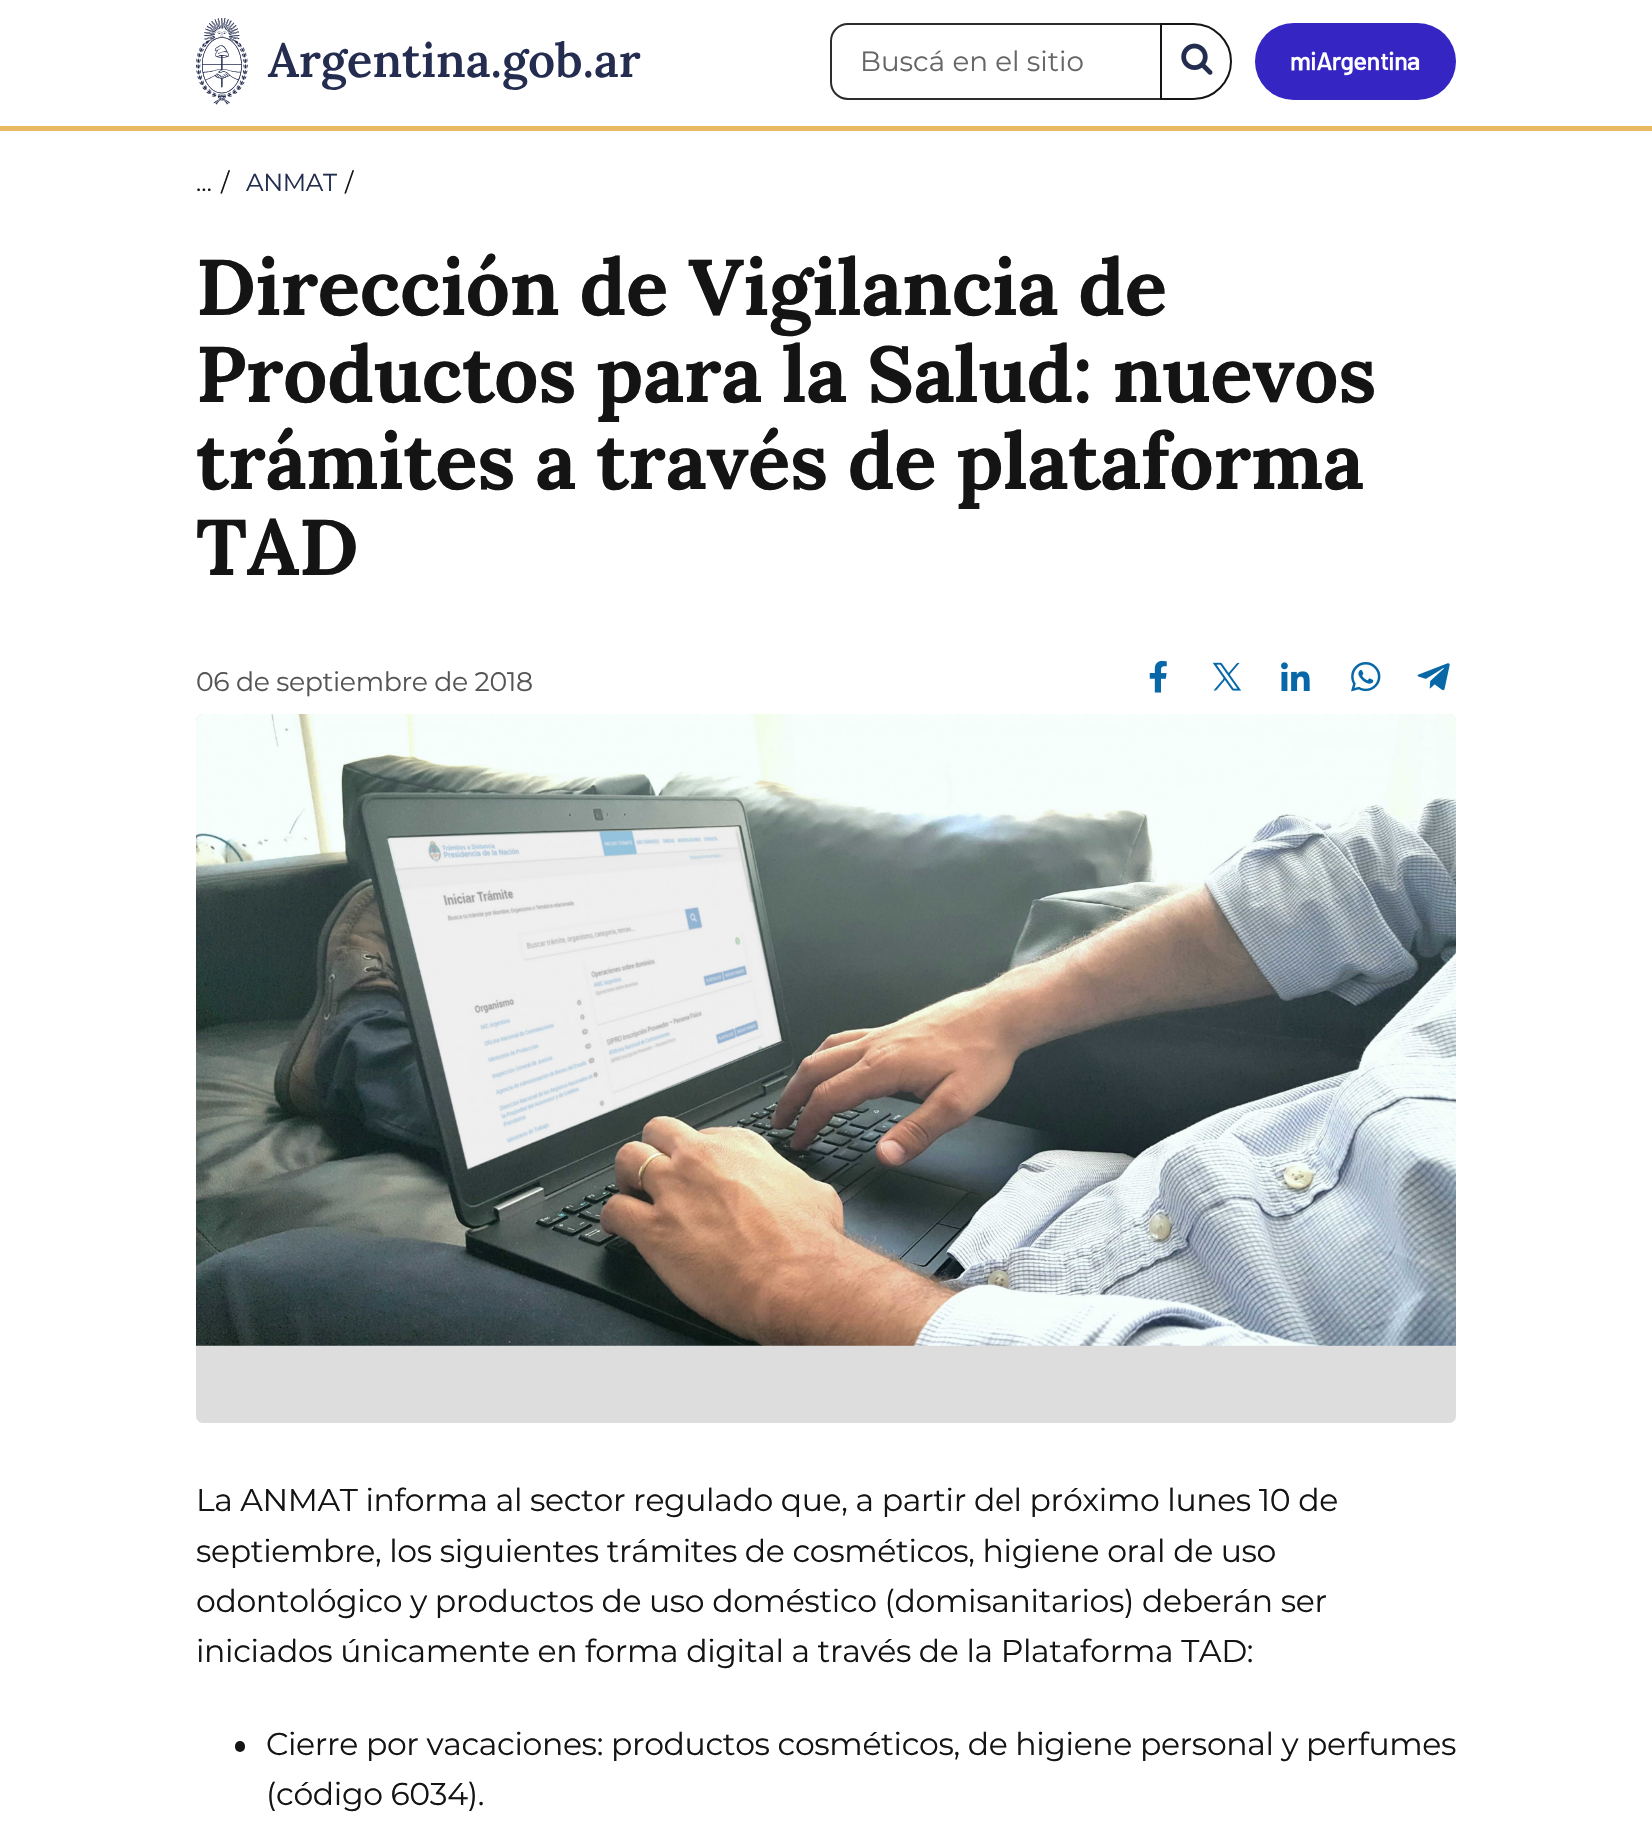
void draw(SkCanvas* canvas) {
  SkPaint paint;
  paint.setAntiAlias(true);
  auto face = [&](const char* family, int weight, float size, bool italic = false) {
    SkFontStyle style(weight, SkFontStyle::kNormal_Width,
      italic ? SkFontStyle::kItalic_Slant : SkFontStyle::kUpright_Slant);
    SkFont result(fontMgr->matchFamilyStyle(family, style), size);
    result.setSubpixel(true);
    return result;
  };
  auto writeSpaced = [&](const char* s, float x, float y, const SkFont& font, const SkPaint& ink, float letter, float word) {
    std::vector<SkGlyphID> glyphs(font.countText(s, strlen(s), SkTextEncoding::kUTF8));
    std::vector<float> xs(glyphs.size());
    font.textToGlyphs(s, strlen(s), SkTextEncoding::kUTF8, glyphs);
    font.getXPos(glyphs, xs, x);
    float extra = 0;
    for (size_t i = 0; i < glyphs.size(); i++) {
      xs[i] += extra;
      extra += letter + word * (glyphs[i] == font.unicharToGlyph(' '));
    }
    canvas->drawTextBlob(SkTextBlob::MakeFromPosHGlyphs(glyphs, xs, y, font), 0, 0, ink);
  };
  auto paste = [&](const char* path, float x, float y, float w, float h) {
    auto image = SkImages::DeferredFromEncodedData(SkData::MakeFromFileName(path));
    canvas->drawImageRect(image, SkRect::MakeXYWH(x, y, w, h), SkSamplingOptions());
  };
  auto shape = [&](const char* data, bool evenOdd = false) {
    SkPath result = *SkParsePath::FromSVGString(data);
    if (evenOdd) result.setFillType(SkPathFillType::kEvenOdd);
    return result;
  };
  canvas->clear(0xffffffff);
  paint.setColor(0xffe7ba61);
  canvas->drawRect(SkRect::MakeXYWH(0, 126, 1652, 5), paint);
  paste("img/1.png", 196, 18, 445, 87);
  paint.setStroke(true);
  paint.setStrokeWidth(2);
  paint.setColor(0xff2c2c2c);
  canvas->drawPath(shape("M848 24H1161V99H848C838.5 99 831 91.5 831 82V41C831 31.5 838.5 24 848 24Z"), paint);
  paint.setStroke(false);
  paint.setColor(0xffffffff);
  canvas->drawPath(shape("M1161 24H1193.5C1214 24 1231 41 1231 61.5C1231 82 1214 99 1193.5 99H1161Z"), paint);
  paint.setStroke(true);
  paint.setColor(0xff141414);
  canvas->drawPath(shape("M1161 24H1193.5C1214 24 1231 41 1231 61.5C1231 82 1214 99 1193.5 99H1161Z"), paint);
  paste("img/2.png", 1181, 43, 32, 32);
  paint.setStroke(false);
  paint.setColor(0xff3526c3);
  canvas->drawRoundRect(SkRect::MakeXYWH(1255, 23, 201, 77), 38.5f, 38.5f, paint);
  paste("img/3.png", 1291, 51, 129, 25);
  paste("img/4.png", 1149, 660, 18, 33);
  paste("img/5.png", 1212, 662, 29, 29);
  paste("img/6.png", 1281, 662, 29, 29);
  paste("img/7.png", 1351, 662, 30, 30);
  paste("img/8.png", 1417, 663, 33, 28);
  paint.setColor(0xffdddddd);
  canvas->drawRoundRect(SkRect::MakeXYWH(196, 714, 1260, 709), 7, 7, paint);
  paste("img/9.png", 196, 714, 1260, 632);
  paint.setColor(0xff141414);
  canvas->drawRoundRect(SkRect::MakeXYWH(235, 1741, 10, 11), 5, 5, paint);
  auto f0 = face("Montserrat", 400, 27.75f);
  paint.setColor(0xff666666);
  canvas->drawString("Buscá en el sitio", 860, 71, f0, paint);
  auto f1 = face("Montserrat", 400, 24.5f);
  paint.setColor(0xff141414);
  canvas->drawString("…", 196, 191, f1, paint);
  canvas->drawString("/", 221, 191, f1, paint);
  paint.setColor(0xff232d4f);
  writeSpaced("ANMAT", 246, 191, f1, paint, -0.35f, 0);
  paint.setColor(0xff141414);
  writeSpaced("/", 345, 191, f1, paint, -0.35f, 0);
  auto f2 = face("Lora", 700, 78.75f);
  {
    const struct { const char* s; float x, y; } items[] = {
      {"Dirección de Vigilancia de", 196, 315},
      {"Productos para la Salud: nuevos", 196, 402},
      {"trámites a través de plataforma", 196, 489},
      {"TAD", 196, 575},
    };
    for (auto [s, x, y] : items) {
      writeSpaced(s, x, y, f2, paint, -0.5f, 0);
    }
  }
  auto f3 = face("Montserrat", 400, 26.75f);
  paint.setColor(0xff555555);
  writeSpaced("06 de septiembre de 2018", 196, 691, f3, paint, -0.35f, 0);
  auto f4 = face("Montserrat", 400, 31.5f);
  paint.setColor(0xff141414);
  {
    const struct { const char* s; float x, y; } items[] = {
      {"La ANMAT informa al sector regulado que, a partir del próximo lunes 10 de", 196, 1511},
      {"septiembre, los siguientes trámites de cosméticos, higiene oral de uso", 196, 1562},
      {"odontológico y productos de uso doméstico (domisanitarios) deberán ser", 196, 1612},
      {"iniciados únicamente en forma digital a través de la Plataforma TAD:", 196, 1662},
      {"Cierre por vacaciones: productos cosméticos, de higiene personal y perfumes", 266, 1755},
      {"(código 6034).", 266, 1805},
    };
    for (auto [s, x, y] : items) {
      writeSpaced(s, x, y, f4, paint, -0.35f, 0);
    }
  }
}
